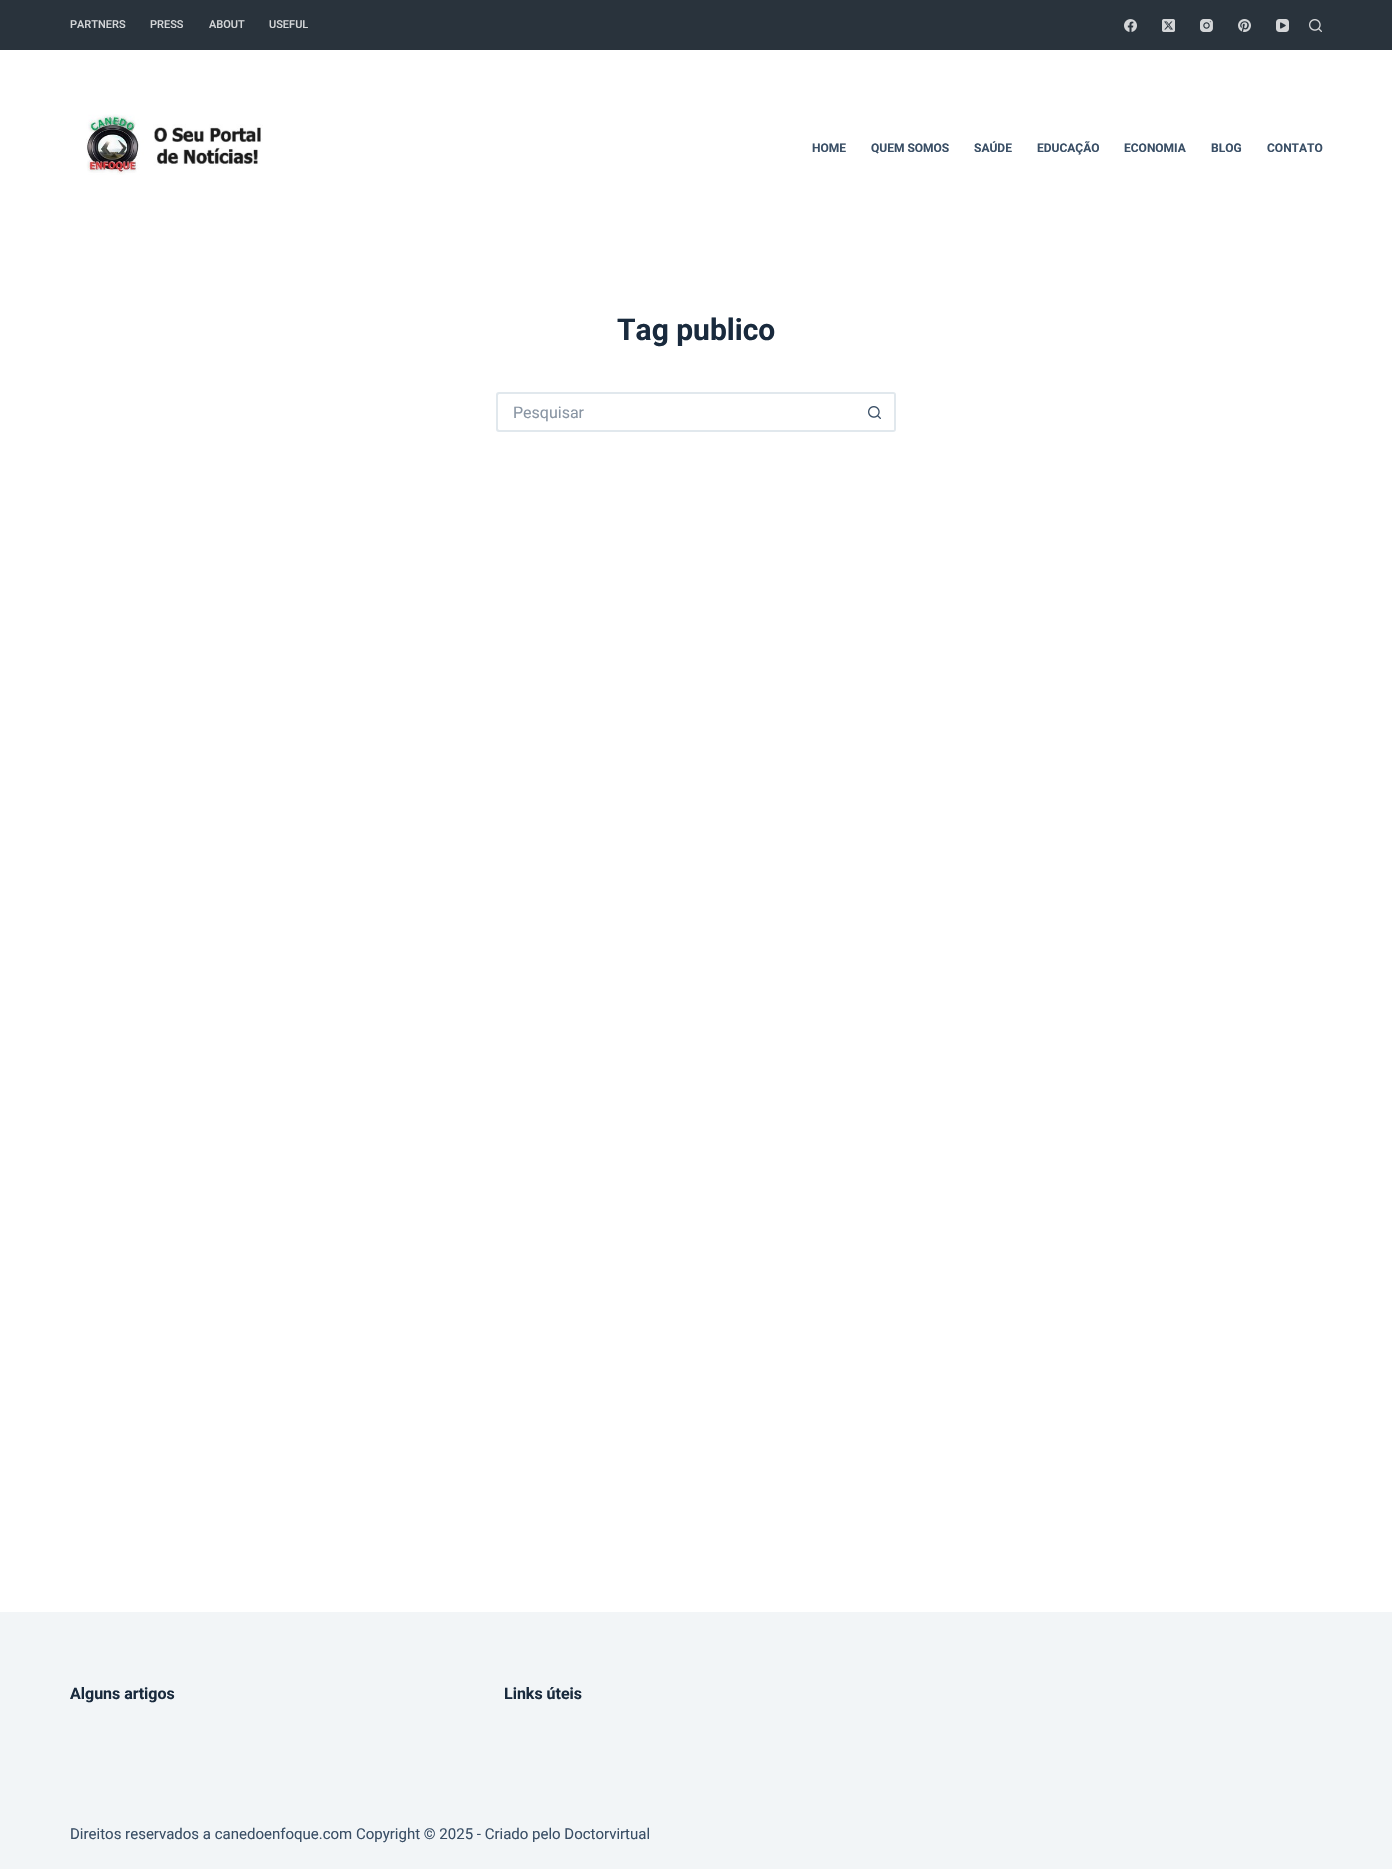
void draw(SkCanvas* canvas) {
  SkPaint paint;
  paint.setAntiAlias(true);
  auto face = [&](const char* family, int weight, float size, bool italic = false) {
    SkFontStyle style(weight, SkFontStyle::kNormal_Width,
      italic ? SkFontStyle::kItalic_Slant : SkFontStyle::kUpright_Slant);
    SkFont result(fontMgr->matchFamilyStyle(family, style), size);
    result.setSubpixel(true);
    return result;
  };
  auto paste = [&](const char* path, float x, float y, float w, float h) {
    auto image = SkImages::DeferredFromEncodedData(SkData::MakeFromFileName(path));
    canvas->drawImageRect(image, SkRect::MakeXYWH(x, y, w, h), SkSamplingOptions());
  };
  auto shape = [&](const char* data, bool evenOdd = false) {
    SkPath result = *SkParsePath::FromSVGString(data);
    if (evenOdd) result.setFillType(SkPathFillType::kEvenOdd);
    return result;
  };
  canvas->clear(0xffffffff);
  paint.setColor(0xff29333c);
  canvas->drawRect(SkRect::MakeXYWH(0, 0, 1392, 50), paint);
  paste("img/1.png", 1124, 19, 13, 13);
  paste("img/2.png", 1162, 19, 13, 13);
  paste("img/3.png", 1200, 19, 13, 13);
  paste("img/4.png", 1238, 19, 13, 13);
  paste("img/5.png", 1276, 19, 13, 13);
  paste("img/6.png", 1309, 19, 13, 13);
  paste("img/7.png", 86, 114, 177, 61);
  paint.setColor(0xffe1e8ed);
  canvas->drawPath(shape("M499 392H856V432H499C497 432 496 431 496 429V395C496 393 497 392 499 392ZM499 394H856V430H499L498 429V395Z", true), paint);
  canvas->drawPath(shape("M856 392H893C895 392 896 393 896 395V429C896 431 895 432 893 432H856ZM856 394H893C894 394 894 394 894 395V429C894 430 894 430 893 430H856Z", true), paint);
  paste("img/8.png", 868, 406, 13, 13);
  paint.setColor(0xfff2f5f7);
  canvas->drawRect(SkRect::MakeXYWH(0, 1612, 1392, 257), paint);
  auto f0 = face("Roboto", 500, 11);
  paint.setColor(0xffd4d6d8);
  {
    const struct { const char* s; float x, y; } items[] = {
      {"PARTNERS", 70, 28},
      {"PRESS", 150, 28},
      {"ABOUT", 209, 28},
      {"USEFUL", 269, 28},
    };
    for (auto [s, x, y] : items) {
      canvas->drawString(s, x, y, f0, paint);
    }
  }
  auto f1 = face("Roboto", 700, 12);
  paint.setColor(0xff3a4f66);
  {
    const struct { const char* s; float x, y; } items[] = {
      {"HOME", 812, 152},
      {"QUEM SOMOS", 871, 152},
      {"SAÚDE", 974, 152},
      {"EDUCAÇÃO", 1037, 152},
      {"ECONOMIA", 1124, 152},
      {"BLOG", 1211, 152},
      {"CONTATO", 1267, 152},
    };
    for (auto [s, x, y] : items) {
      canvas->drawString(s, x, y, f1, paint);
    }
  }
  auto f2 = face("Roboto", 700, 30);
  paint.setColor(0xff192a3d);
  canvas->drawString("Tag publico", 617, 340, f2, paint);
  auto f3 = face("Roboto", 400, 16);
  paint.setColor(0xff8995a3);
  canvas->drawString("Pesquisar", 513, 418, f3, paint);
  auto f4 = face("Roboto", 700, 16);
  paint.setColor(0xff192a3d);
  canvas->drawString("Alguns artigos", 70, 1699, f4, paint);
  canvas->drawString("Links úteis", 504, 1699, f4, paint);
  auto f5 = face("Roboto", 400, 15);
  paint.setColor(0xff3a4f66);
  canvas->drawString("Direitos reservados a canedoenfoque.com Copyright © 2025 - Criado pelo Doctorvirtual", 70, 1839, f5, paint);
}
